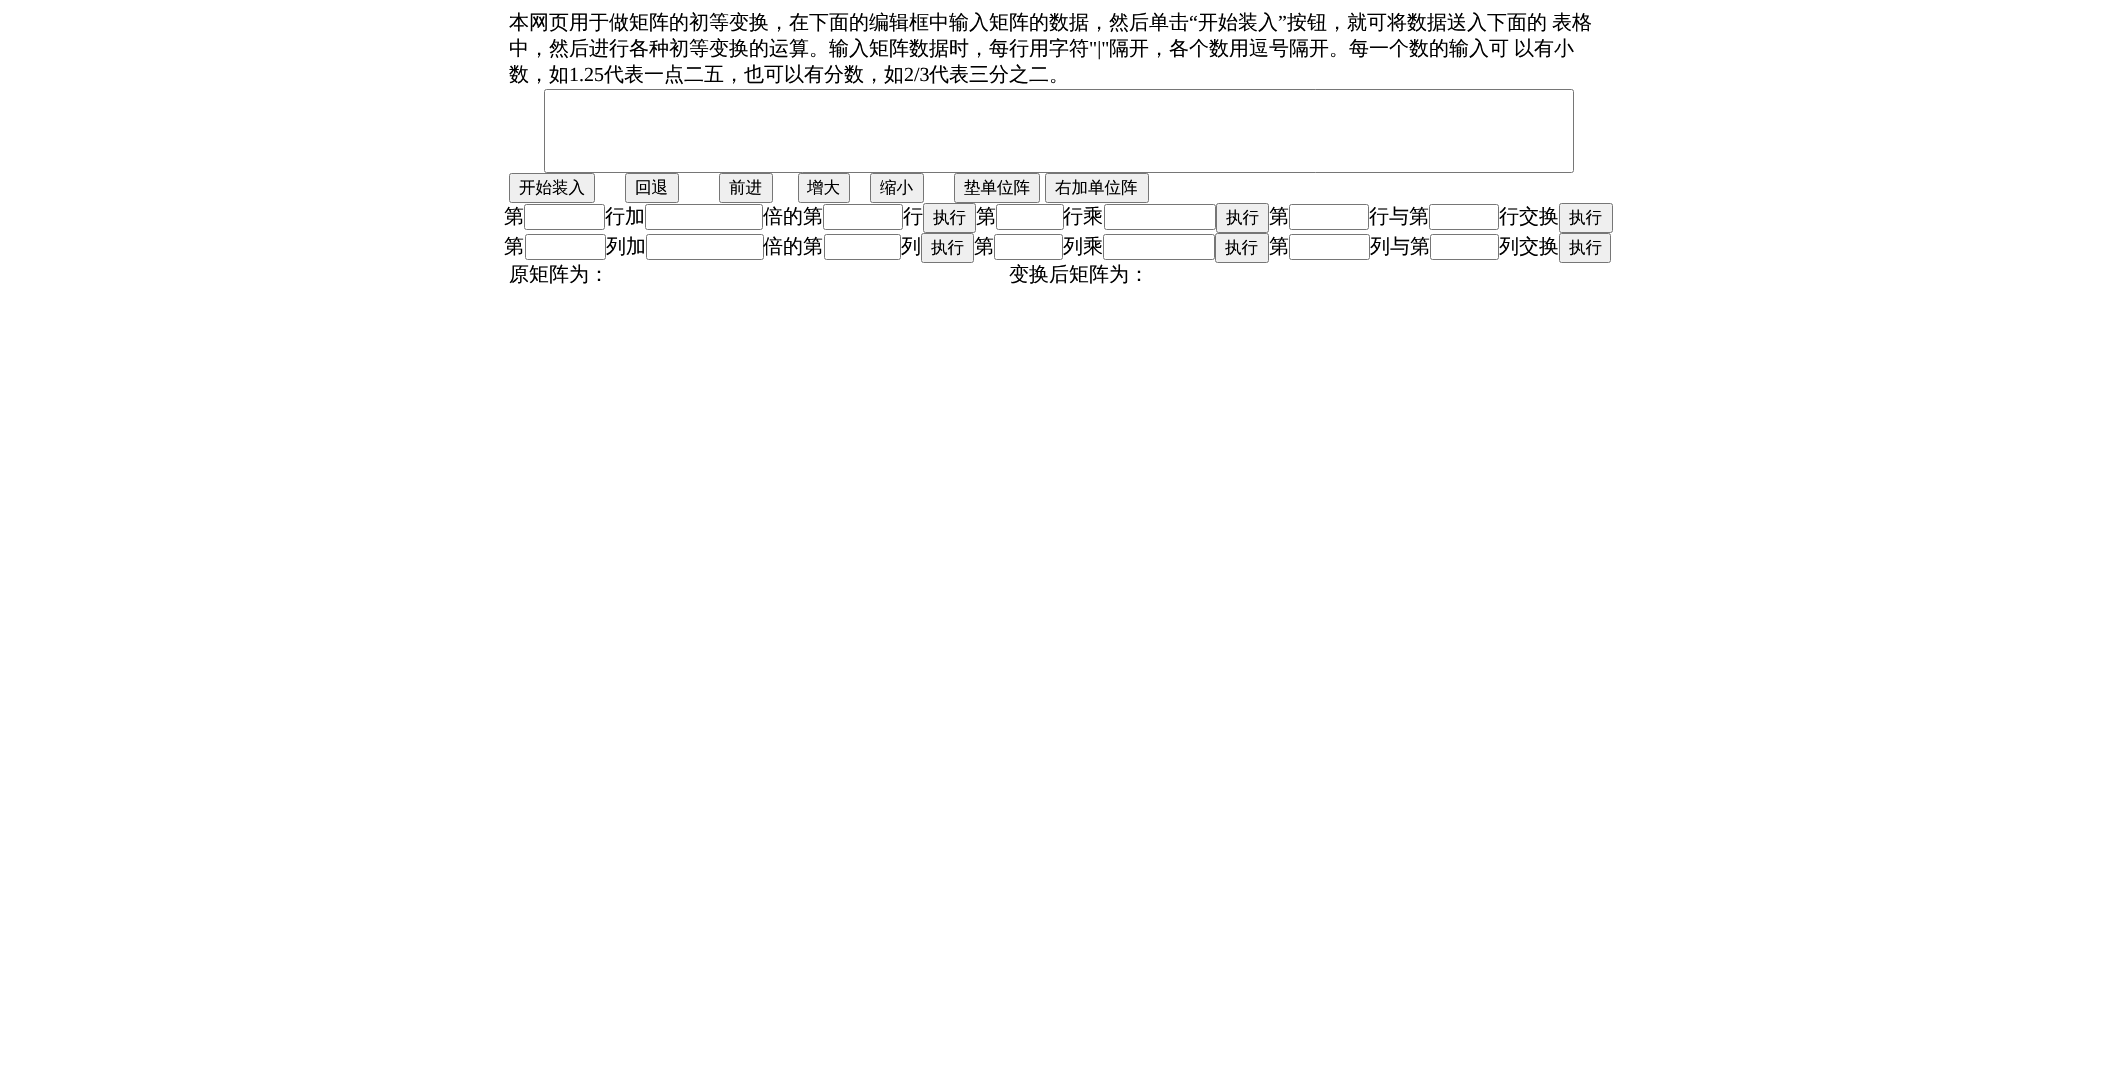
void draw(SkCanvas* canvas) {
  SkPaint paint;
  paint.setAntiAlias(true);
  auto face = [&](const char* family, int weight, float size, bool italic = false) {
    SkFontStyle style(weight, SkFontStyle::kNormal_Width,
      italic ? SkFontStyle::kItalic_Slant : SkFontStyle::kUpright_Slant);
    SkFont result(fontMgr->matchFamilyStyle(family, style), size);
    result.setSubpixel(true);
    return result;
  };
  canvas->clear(0xffffffff);
  paint.setStroke(true);
  paint.setStrokeWidth(1);
  paint.setColor(0xff767676);
  canvas->drawRoundRect(SkRect::MakeXYWH(544.5f, 89.5f, 1029, 83), 2, 2, paint);
  paint.setStroke(false);
  paint.setColor(0xffefefef);
  canvas->drawRoundRect(SkRect::MakeXYWH(509.5f, 173.5f, 85, 29), 2, 2, paint);
  paint.setStroke(true);
  paint.setColor(0xff767676);
  canvas->drawRoundRect(SkRect::MakeXYWH(509.5f, 173.5f, 85, 29), 2, 2, paint);
  paint.setStroke(false);
  paint.setColor(0xffefefef);
  canvas->drawRoundRect(SkRect::MakeXYWH(625.5f, 173.5f, 53, 29), 2, 2, paint);
  paint.setStroke(true);
  paint.setColor(0xff767676);
  canvas->drawRoundRect(SkRect::MakeXYWH(625.5f, 173.5f, 53, 29), 2, 2, paint);
  paint.setStroke(false);
  paint.setColor(0xffefefef);
  canvas->drawRoundRect(SkRect::MakeXYWH(719.5f, 173.5f, 53, 29), 2, 2, paint);
  paint.setStroke(true);
  paint.setColor(0xff767676);
  canvas->drawRoundRect(SkRect::MakeXYWH(719.5f, 173.5f, 53, 29), 2, 2, paint);
  paint.setStroke(false);
  paint.setColor(0xffefefef);
  canvas->drawRoundRect(SkRect::MakeXYWH(798.5f, 173.5f, 51, 29), 2, 2, paint);
  paint.setStroke(true);
  paint.setColor(0xff767676);
  canvas->drawRoundRect(SkRect::MakeXYWH(798.5f, 173.5f, 51, 29), 2, 2, paint);
  paint.setStroke(false);
  paint.setColor(0xffefefef);
  canvas->drawRoundRect(SkRect::MakeXYWH(870.5f, 173.5f, 53, 29), 2, 2, paint);
  paint.setStroke(true);
  paint.setColor(0xff767676);
  canvas->drawRoundRect(SkRect::MakeXYWH(870.5f, 173.5f, 53, 29), 2, 2, paint);
  paint.setStroke(false);
  paint.setColor(0xffefefef);
  canvas->drawRoundRect(SkRect::MakeXYWH(954.5f, 173.5f, 85, 29), 2, 2, paint);
  paint.setStroke(true);
  paint.setColor(0xff767676);
  canvas->drawRoundRect(SkRect::MakeXYWH(954.5f, 173.5f, 85, 29), 2, 2, paint);
  paint.setStroke(false);
  paint.setColor(0xffefefef);
  canvas->drawRoundRect(SkRect::MakeXYWH(1045.5f, 173.5f, 103, 29), 2, 2, paint);
  paint.setStroke(true);
  paint.setColor(0xff767676);
  canvas->drawRoundRect(SkRect::MakeXYWH(1045.5f, 173.5f, 103, 29), 2, 2, paint);
  canvas->drawRoundRect(SkRect::MakeXYWH(524.5f, 204.5f, 80, 25), 2, 2, paint);
  canvas->drawRoundRect(SkRect::MakeXYWH(645.5f, 204.5f, 117, 25), 2, 2, paint);
  canvas->drawRoundRect(SkRect::MakeXYWH(823.5f, 204.5f, 79, 25), 2, 2, paint);
  paint.setStroke(false);
  paint.setColor(0xffefefef);
  canvas->drawRoundRect(SkRect::MakeXYWH(923.5f, 203.5f, 52, 29), 2, 2, paint);
  paint.setStroke(true);
  paint.setColor(0xff767676);
  canvas->drawRoundRect(SkRect::MakeXYWH(923.5f, 203.5f, 52, 29), 2, 2, paint);
  canvas->drawRoundRect(SkRect::MakeXYWH(996.5f, 204.5f, 67, 25), 2, 2, paint);
  canvas->drawRoundRect(SkRect::MakeXYWH(1104.5f, 204.5f, 111, 25), 2, 2, paint);
  paint.setStroke(false);
  paint.setColor(0xffefefef);
  canvas->drawRoundRect(SkRect::MakeXYWH(1216.5f, 203.5f, 52, 29), 2, 2, paint);
  paint.setStroke(true);
  paint.setColor(0xff767676);
  canvas->drawRoundRect(SkRect::MakeXYWH(1216.5f, 203.5f, 52, 29), 2, 2, paint);
  canvas->drawRoundRect(SkRect::MakeXYWH(1289.5f, 204.5f, 79, 25), 2, 2, paint);
  canvas->drawRoundRect(SkRect::MakeXYWH(1429.5f, 204.5f, 69, 25), 2, 2, paint);
  paint.setStroke(false);
  paint.setColor(0xffefefef);
  canvas->drawRoundRect(SkRect::MakeXYWH(1559.5f, 203.5f, 53, 29), 2, 2, paint);
  paint.setStroke(true);
  paint.setColor(0xff767676);
  canvas->drawRoundRect(SkRect::MakeXYWH(1559.5f, 203.5f, 53, 29), 2, 2, paint);
  canvas->drawRoundRect(SkRect::MakeXYWH(525.5f, 234.5f, 80, 25), 2, 2, paint);
  canvas->drawRoundRect(SkRect::MakeXYWH(646.5f, 234.5f, 117, 25), 2, 2, paint);
  canvas->drawRoundRect(SkRect::MakeXYWH(824.5f, 234.5f, 76, 25), 2, 2, paint);
  paint.setStroke(false);
  paint.setColor(0xffefefef);
  canvas->drawRoundRect(SkRect::MakeXYWH(921.5f, 233.5f, 52, 29), 2, 2, paint);
  paint.setStroke(true);
  paint.setColor(0xff767676);
  canvas->drawRoundRect(SkRect::MakeXYWH(921.5f, 233.5f, 52, 29), 2, 2, paint);
  canvas->drawRoundRect(SkRect::MakeXYWH(994.5f, 234.5f, 68, 25), 2, 2, paint);
  canvas->drawRoundRect(SkRect::MakeXYWH(1103.5f, 234.5f, 111, 25), 2, 2, paint);
  paint.setStroke(false);
  paint.setColor(0xffefefef);
  canvas->drawRoundRect(SkRect::MakeXYWH(1215.5f, 233.5f, 53, 29), 2, 2, paint);
  paint.setStroke(true);
  paint.setColor(0xff767676);
  canvas->drawRoundRect(SkRect::MakeXYWH(1215.5f, 233.5f, 53, 29), 2, 2, paint);
  canvas->drawRoundRect(SkRect::MakeXYWH(1289.5f, 234.5f, 80, 25), 2, 2, paint);
  canvas->drawRoundRect(SkRect::MakeXYWH(1430.5f, 234.5f, 68, 25), 2, 2, paint);
  paint.setStroke(false);
  paint.setColor(0xffefefef);
  canvas->drawRoundRect(SkRect::MakeXYWH(1559.5f, 233.5f, 51, 29), 2, 2, paint);
  paint.setStroke(true);
  paint.setColor(0xff767676);
  canvas->drawRoundRect(SkRect::MakeXYWH(1559.5f, 233.5f, 51, 29), 2, 2, paint);
  auto f0 = face("WenQuanYi Zen Hei", 500, 20);
  paint.setStroke(false);
  paint.setColor(0xff000000);
  canvas->drawString("本网页用于做矩阵的初等变换，在下面的编辑框中输入矩阵的数据，然后单击", 509, 29, f0, paint);
  auto f1 = face("Liberation Serif", 400, 20);
  canvas->drawString("“", 1189, 29, f1, paint);
  canvas->drawString("开始装入", 1198, 29, f0, paint);
  canvas->drawString("”", 1278, 29, f1, paint);
  {
    const struct { const char* s; float x, y; } items[] = {
      {"按钮，就可将数据送入下面的", 1287, 29},
      {"表格", 1552, 29},
      {"中，然后进行各种初等变换的运算。输入矩阵数据时，每行用字符", 509, 55},
    };
    for (auto [s, x, y] : items) {
      canvas->drawString(s, x, y, f0, paint);
    }
  }
  canvas->drawString("\"|\"", 1089, 55, f1, paint);
  {
    const struct { const char* s; float x, y; } items[] = {
      {"隔开，各个数用逗号隔开。每一个数的输入可", 1109, 55},
      {"以有小", 1514, 55},
      {"数，如", 509, 81},
    };
    for (auto [s, x, y] : items) {
      canvas->drawString(s, x, y, f0, paint);
    }
  }
  canvas->drawString("1.25", 569, 81, f1, paint);
  canvas->drawString("代表一点二五，也可以有分数，如", 604, 81, f0, paint);
  canvas->drawString("2/3", 904, 81, f1, paint);
  canvas->drawString("代表三分之二。", 929, 81, f0, paint);
  auto f2 = face("WenQuanYi Zen Hei", 500, 16.5f);
  {
    const struct { const char* s; float x, y; } items[] = {
      {"开始装入", 519, 193},
      {"回退", 635, 193},
      {"前进", 729, 193},
      {"增大", 807, 193},
      {"缩小", 880, 193},
      {"垫单位阵", 964, 193},
      {"右加单位阵", 1055, 193},
    };
    for (auto [s, x, y] : items) {
      canvas->drawString(s, x, y, f2, paint);
    }
  }
  {
    const struct { const char* s; float x, y; } items[] = {
      {"第", 504, 223},
      {"行加", 605, 223},
      {"倍的第", 763, 223},
      {"行", 903, 223},
    };
    for (auto [s, x, y] : items) {
      canvas->drawString(s, x, y, f0, paint);
    }
  }
  canvas->drawString("执行", 933, 223, f2, paint);
  canvas->drawString("第", 976, 223, f0, paint);
  canvas->drawString("行乘", 1063, 223, f0, paint);
  canvas->drawString("执行", 1226, 223, f2, paint);
  {
    const struct { const char* s; float x, y; } items[] = {
      {"第", 1269, 223},
      {"行与第", 1369, 223},
      {"行交换", 1499, 223},
    };
    for (auto [s, x, y] : items) {
      canvas->drawString(s, x, y, f0, paint);
    }
  }
  canvas->drawString("执行", 1569, 223, f2, paint);
  {
    const struct { const char* s; float x, y; } items[] = {
      {"第", 504, 253},
      {"列加", 606, 253},
      {"倍的第", 763, 253},
      {"列", 901, 253},
    };
    for (auto [s, x, y] : items) {
      canvas->drawString(s, x, y, f0, paint);
    }
  }
  canvas->drawString("执行", 931, 253, f2, paint);
  canvas->drawString("第", 974, 253, f0, paint);
  canvas->drawString("列乘", 1063, 253, f0, paint);
  canvas->drawString("执行", 1225, 253, f2, paint);
  {
    const struct { const char* s; float x, y; } items[] = {
      {"第", 1269, 253},
      {"列与第", 1370, 253},
      {"列交换", 1499, 253},
    };
    for (auto [s, x, y] : items) {
      canvas->drawString(s, x, y, f0, paint);
    }
  }
  canvas->drawString("执行", 1569, 253, f2, paint);
  canvas->drawString("原矩阵为：", 509, 281, f0, paint);
  canvas->drawString("变换后矩阵为：", 1009, 281, f0, paint);
}
